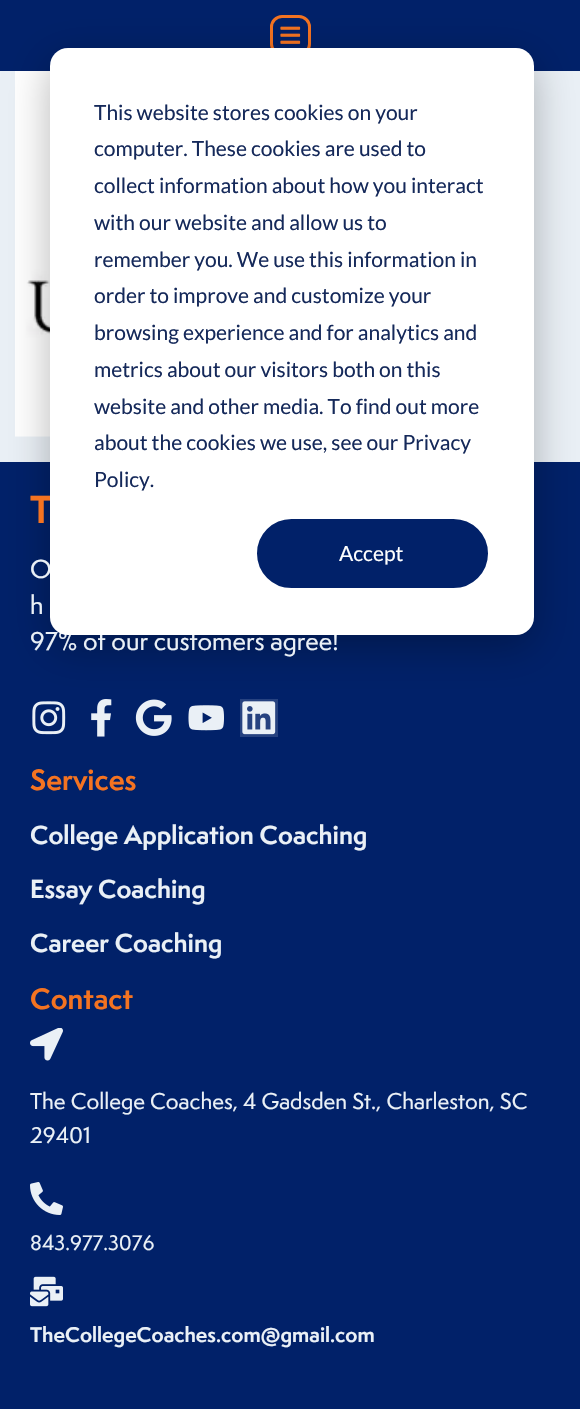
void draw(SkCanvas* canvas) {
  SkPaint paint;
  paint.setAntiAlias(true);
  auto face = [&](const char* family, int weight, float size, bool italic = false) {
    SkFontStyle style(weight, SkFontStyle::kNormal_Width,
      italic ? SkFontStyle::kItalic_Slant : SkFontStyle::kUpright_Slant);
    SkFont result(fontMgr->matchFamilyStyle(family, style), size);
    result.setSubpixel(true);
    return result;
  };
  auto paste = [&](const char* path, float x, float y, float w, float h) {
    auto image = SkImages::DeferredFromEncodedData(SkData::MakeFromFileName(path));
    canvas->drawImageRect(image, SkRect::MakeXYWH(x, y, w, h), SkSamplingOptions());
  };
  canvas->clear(0xffeaf0f6);
  paint.setColor(0xff012169);
  canvas->drawRect(SkRect::MakeXYWH(0, 0, 580, 71), paint);
  paint.setStroke(true);
  paint.setStrokeWidth(3);
  paint.setColor(0xfff47321);
  canvas->drawRoundRect(SkRect::MakeXYWH(271.5f, 16.5f, 38, 38), 10.5f, 10.5f, paint);
  paste("img/1.png", 280, 26, 21, 18);
  paste("img/2.png", 15, 71, 35, 366);
  paint.setStroke(false);
  paint.setColor(0xff012169);
  canvas->drawRect(SkRect::MakeXYWH(0, 462, 580, 947), paint);
  paste("img/3.png", 32, 701, 34, 34);
  paste("img/4.png", 91, 699, 21, 38);
  paste("img/5.png", 135, 699, 37, 37);
  paste("img/6.png", 188, 705, 36, 26);
  paint.setColor(0xff264280);
  canvas->drawRect(SkRect::MakeXYWH(240, 699, 38, 38), paint);
  paste("img/7.png", 242, 701, 34, 34);
  paint.setColor(0x47000000);
  paint.setMaskFilter(SkMaskFilter::MakeBlur(kNormal_SkBlurStyle, 21));
  canvas->drawRoundRect(SkRect::MakeXYWH(50, 60, 484, 587), 18, 18, paint);
  paint.setMaskFilter(nullptr);
  paste("img/8.png", 30, 1028, 33, 33);
  paste("img/9.png", 30, 1182, 33, 33);
  paste("img/10.png", 30, 1276, 33, 31);
  auto f0 = face("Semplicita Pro", 700, 36);
  paint.setColor(0xfff47321);
  canvas->drawString("T", 30, 523, f0, paint);
  auto f1 = face("Semplicita Pro", 500, 24);
  paint.setColor(0xffeaf0f6);
  {
    const struct { const char* s; float x, y; } items[] = {
      {"O", 30, 578},
      {"h", 30, 614},
      {"97% of our customers agree!", 30, 650},
    };
    for (auto [s, x, y] : items) {
      canvas->drawString(s, x, y, f1, paint);
    }
  }
  paint.setColor(0xffffffff);
  canvas->drawRoundRect(SkRect::MakeXYWH(50, 48, 484, 587), 18, 18, paint);
  paint.setColor(0xff012169);
  canvas->drawRoundRect(SkRect::MakeXYWH(258, 520, 229, 67), 33.5f, 33.5f, paint);
  paint.setStroke(true);
  paint.setStrokeWidth(2);
  canvas->drawRoundRect(SkRect::MakeXYWH(258, 520, 229, 67), 33.5f, 33.5f, paint);
  auto f2 = face("Lato", 400, 21);
  paint.setStroke(false);
  paint.setColor(0xffffffff);
  canvas->drawString("Accept", 339, 561, f2, paint);
  paint.setColor(0xff15295a);
  {
    const struct { const char* s; float x, y; } items[] = {
      {"Policy.", 94, 487},
      {"about the cookies we use, see our Privacy", 94, 450},
      {"website and other media. To find out more", 94, 414},
      {"metrics about our visitors both on this", 94, 377},
      {"browsing experience and for analytics and", 94, 340},
      {"order to improve and customize your", 94, 303},
      {"remember you. We use this information in", 94, 267},
      {"with our website and allow us to", 94, 230},
      {"collect information about how you interact", 94, 193},
      {"computer. These cookies are used to", 94, 156},
      {"This website stores cookies on your", 94, 120},
    };
    for (auto [s, x, y] : items) {
      canvas->drawString(s, x, y, f2, paint);
    }
  }
  auto f3 = face("Semplicita Pro", 700, 27);
  paint.setColor(0xfff47321);
  canvas->drawString("Services", 30, 790, f3, paint);
  auto f4 = face("Semplicita Pro", 700, 24);
  paint.setColor(0xffeaf0f6);
  {
    const struct { const char* s; float x, y; } items[] = {
      {"College Application Coaching", 30, 844},
      {"Essay Coaching", 30, 898},
      {"Career Coaching", 30, 952},
    };
    for (auto [s, x, y] : items) {
      canvas->drawString(s, x, y, f4, paint);
    }
  }
  paint.setColor(0xfff47321);
  canvas->drawString("Contact", 30, 1009, f3, paint);
  auto f5 = face("Semplicita Pro", 500, 21);
  paint.setColor(0xffeaf0f6);
  canvas->drawString("The College Coaches, 4 Gadsden St., Charleston, SC", 30, 1109, f5, paint);
  canvas->drawString("29401", 30, 1143, f5, paint);
  auto f6 = face("Semplicita Pro", 500, 19.5f);
  canvas->drawString("843.977.3076", 30, 1250, f6, paint);
  auto f7 = face("Semplicita Pro", 700, 19.5f);
  canvas->drawString("TheCollegeCoaches.com@gmail.com", 30, 1342, f7, paint);
}
